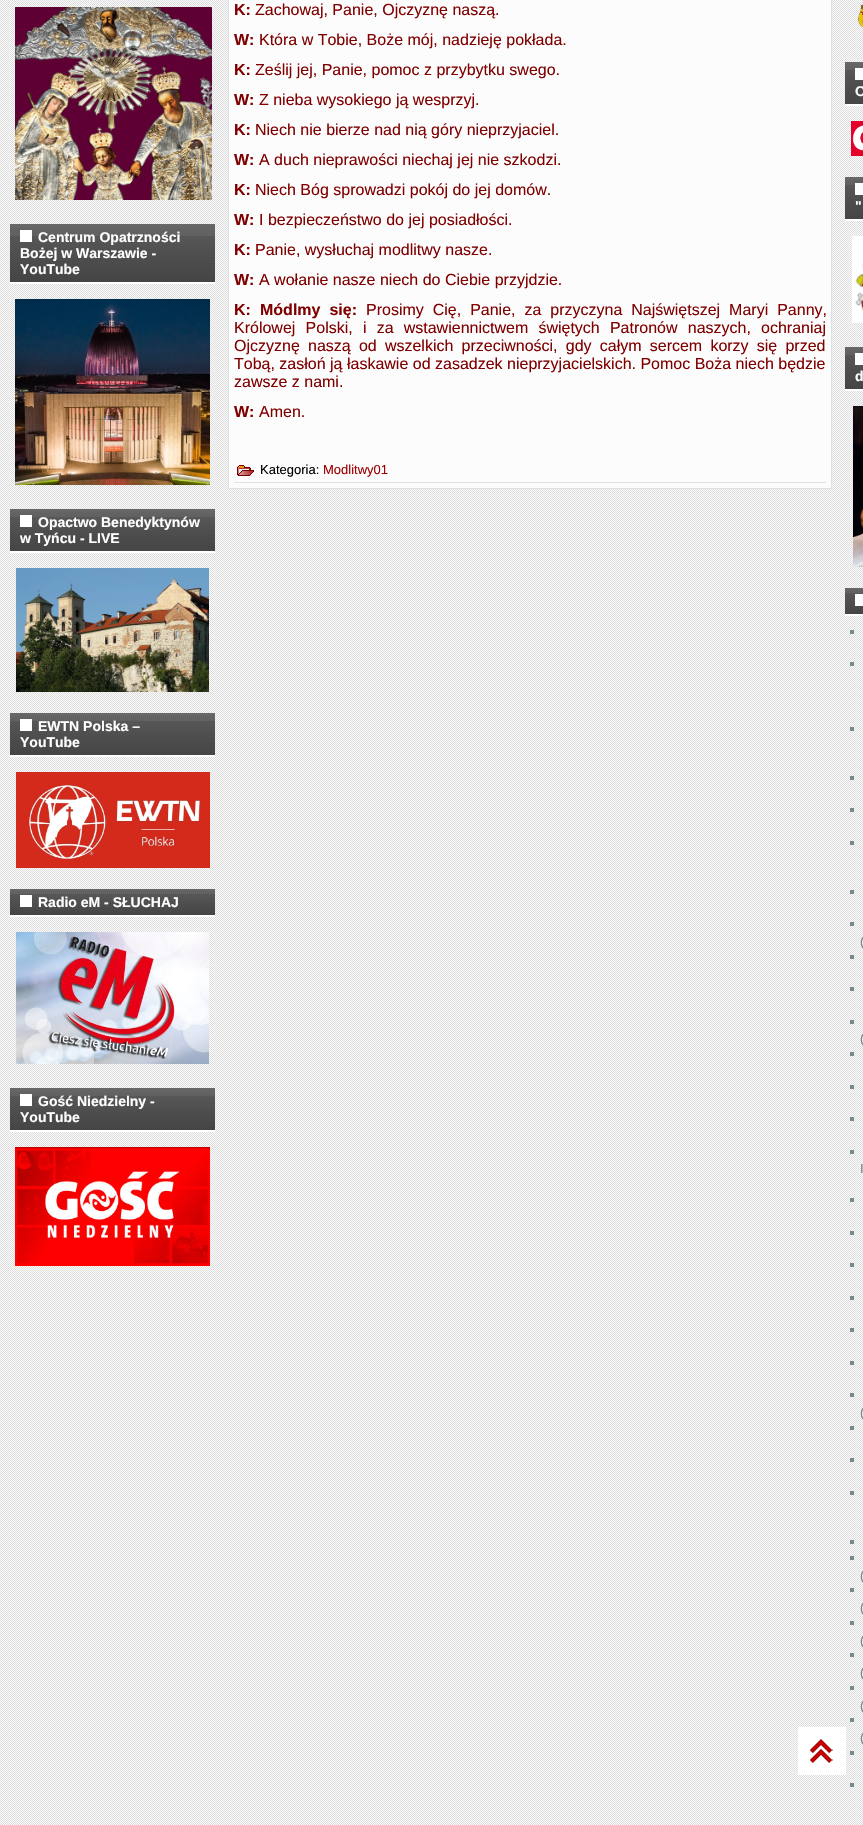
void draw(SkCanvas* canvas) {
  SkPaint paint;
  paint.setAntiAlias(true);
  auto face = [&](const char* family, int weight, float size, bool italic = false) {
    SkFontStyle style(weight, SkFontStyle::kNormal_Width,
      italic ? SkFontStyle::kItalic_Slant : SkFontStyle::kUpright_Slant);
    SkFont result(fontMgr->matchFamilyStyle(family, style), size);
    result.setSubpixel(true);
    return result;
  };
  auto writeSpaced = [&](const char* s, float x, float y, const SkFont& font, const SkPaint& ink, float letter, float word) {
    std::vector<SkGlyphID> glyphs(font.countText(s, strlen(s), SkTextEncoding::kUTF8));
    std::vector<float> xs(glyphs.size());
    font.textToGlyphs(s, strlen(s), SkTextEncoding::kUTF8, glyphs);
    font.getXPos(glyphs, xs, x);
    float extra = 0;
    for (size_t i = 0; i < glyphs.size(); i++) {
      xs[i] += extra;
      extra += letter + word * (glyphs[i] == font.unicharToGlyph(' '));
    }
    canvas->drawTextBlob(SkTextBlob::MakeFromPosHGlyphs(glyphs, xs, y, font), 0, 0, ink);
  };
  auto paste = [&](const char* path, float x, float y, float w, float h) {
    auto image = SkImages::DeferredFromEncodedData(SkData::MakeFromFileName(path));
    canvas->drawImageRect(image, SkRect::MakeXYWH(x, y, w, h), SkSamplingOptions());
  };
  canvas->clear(0xffffffff);
  paste("img/1.png", 0, 0, 863, 1825);
  paste("img/2.png", 15, 7, 197, 193);
  {
    const SkColor colors[] = {0xff696969, 0xff636363, 0xff616161, 0xff575757, 0xff4f4f4f, 0xff454545};
    const float stops[] = {0, 0.1f, 0.2f, 0.2f, 0.5f, 1};
    const SkPoint ends[] = {{113, 224}, {113, 282}};
    paint.setShader(SkGradientShader::MakeLinear(ends, colors, stops, 6, SkTileMode::kClamp));
    paint.setAlpha(255);
  }
  canvas->drawRect(SkRect::MakeXYWH(10, 224, 205, 58), paint);
  paint.setShader(nullptr);
  paint.setColor(0xffffffff);
  canvas->drawRect(SkRect::MakeXYWH(10, 282, 205, 2), paint);
  canvas->drawRect(SkRect::MakeXYWH(20, 230, 12, 12), paint);
  paste("img/3.png", 15, 299, 195, 186);
  {
    const SkColor colors[] = {0xff696969, 0xff636363, 0xff616161, 0xff575757, 0xff4f4f4f, 0xff454545};
    const float stops[] = {0, 0.1f, 0.2f, 0.2f, 0.5f, 1};
    const SkPoint ends[] = {{113, 509}, {113, 551}};
    paint.setShader(SkGradientShader::MakeLinear(ends, colors, stops, 6, SkTileMode::kClamp));
    paint.setAlpha(255);
  }
  canvas->drawRect(SkRect::MakeXYWH(10, 509, 205, 42), paint);
  paint.setShader(nullptr);
  paint.setColor(0xffffffff);
  canvas->drawRect(SkRect::MakeXYWH(10, 551, 205, 2), paint);
  canvas->drawRect(SkRect::MakeXYWH(20, 515, 12, 12), paint);
  paste("img/4.png", 16, 568, 193, 124);
  {
    const SkColor colors[] = {0xff696969, 0xff636363, 0xff616161, 0xff575757, 0xff4f4f4f, 0xff454545};
    const float stops[] = {0, 0.1f, 0.2f, 0.2f, 0.5f, 1};
    const SkPoint ends[] = {{113, 713}, {113, 755}};
    paint.setShader(SkGradientShader::MakeLinear(ends, colors, stops, 6, SkTileMode::kClamp));
    paint.setAlpha(255);
  }
  canvas->drawRect(SkRect::MakeXYWH(10, 713, 205, 42), paint);
  paint.setShader(nullptr);
  paint.setColor(0xffffffff);
  canvas->drawRect(SkRect::MakeXYWH(10, 755, 205, 2), paint);
  canvas->drawRect(SkRect::MakeXYWH(20, 719, 12, 12), paint);
  paste("img/5.png", 16, 772, 194, 96);
  {
    const SkColor colors[] = {0xff696969, 0xff636363, 0xff616161, 0xff575757, 0xff4f4f4f, 0xff454545};
    const float stops[] = {0, 0.1f, 0.2f, 0.2f, 0.5f, 1};
    const SkPoint ends[] = {{113, 889}, {113, 915}};
    paint.setShader(SkGradientShader::MakeLinear(ends, colors, stops, 6, SkTileMode::kClamp));
    paint.setAlpha(255);
  }
  canvas->drawRect(SkRect::MakeXYWH(10, 889, 205, 26), paint);
  paint.setShader(nullptr);
  paint.setColor(0xffffffff);
  canvas->drawRect(SkRect::MakeXYWH(10, 915, 205, 2), paint);
  canvas->drawRect(SkRect::MakeXYWH(20, 895, 12, 12), paint);
  paste("img/6.png", 16, 932, 193, 132);
  {
    const SkColor colors[] = {0xff696969, 0xff636363, 0xff616161, 0xff575757, 0xff4f4f4f, 0xff454545};
    const float stops[] = {0, 0.1f, 0.2f, 0.2f, 0.5f, 1};
    const SkPoint ends[] = {{113, 1088}, {113, 1130}};
    paint.setShader(SkGradientShader::MakeLinear(ends, colors, stops, 6, SkTileMode::kClamp));
    paint.setAlpha(255);
  }
  canvas->drawRect(SkRect::MakeXYWH(10, 1088, 205, 42), paint);
  paint.setShader(nullptr);
  paint.setColor(0xffffffff);
  canvas->drawRect(SkRect::MakeXYWH(10, 1130, 205, 2), paint);
  canvas->drawRect(SkRect::MakeXYWH(20, 1094, 12, 12), paint);
  paste("img/7.png", 15, 1147, 195, 119);
  paint.setColor(0xccffffff);
  canvas->drawRect(SkRect::MakeXYWH(228, 0, 604, 489), paint);
  paint.setStroke(true);
  paint.setStrokeWidth(1);
  paint.setColor(0xccd3dada);
  canvas->drawRect(SkRect::MakeXYWH(228.5f, -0.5f, 603, 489), paint);
  paint.setStroke(false);
  paint.setColor(0xffe2e2e2);
  canvas->drawRect(SkRect::MakeXYWH(234, 482, 592, 1), paint);
  paste("img/8.png", 237, 465, 17, 11);
  paste("img/9.png", 858, 4, 5, 23);
  {
    const SkColor colors[] = {0xff696969, 0xff636363, 0xff616161, 0xff575757, 0xff4f4f4f, 0xff454545};
    const float stops[] = {0, 0.1f, 0.2f, 0.2f, 0.5f, 1};
    const SkPoint ends[] = {{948, 62}, {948, 104}};
    paint.setShader(SkGradientShader::MakeLinear(ends, colors, stops, 6, SkTileMode::kClamp));
    paint.setAlpha(255);
  }
  canvas->drawRect(SkRect::MakeXYWH(845, 62, 18, 42), paint);
  paint.setShader(nullptr);
  paint.setColor(0xffffffff);
  canvas->drawRect(SkRect::MakeXYWH(845, 104, 18, 2), paint);
  canvas->drawRect(SkRect::MakeXYWH(855, 68, 8, 12), paint);
  paste("img/10.png", 851, 121, 12, 35);
  {
    const SkColor colors[] = {0xff696969, 0xff636363, 0xff616161, 0xff575757, 0xff4f4f4f, 0xff454545};
    const float stops[] = {0, 0.1f, 0.2f, 0.2f, 0.5f, 1};
    const SkPoint ends[] = {{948, 177}, {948, 219}};
    paint.setShader(SkGradientShader::MakeLinear(ends, colors, stops, 6, SkTileMode::kClamp));
    paint.setAlpha(255);
  }
  canvas->drawRect(SkRect::MakeXYWH(845, 177, 18, 42), paint);
  paint.setShader(nullptr);
  paint.setColor(0xffffffff);
  canvas->drawRect(SkRect::MakeXYWH(845, 219, 18, 2), paint);
  canvas->drawRect(SkRect::MakeXYWH(855, 183, 8, 12), paint);
  paste("img/11.png", 852, 236, 11, 87);
  {
    const SkColor colors[] = {0xff696969, 0xff636363, 0xff616161, 0xff575757, 0xff4f4f4f, 0xff454545};
    const float stops[] = {0, 0.1f, 0.2f, 0.2f, 0.5f, 1};
    const SkPoint ends[] = {{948, 347}, {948, 389}};
    paint.setShader(SkGradientShader::MakeLinear(ends, colors, stops, 6, SkTileMode::kClamp));
    paint.setAlpha(255);
  }
  canvas->drawRect(SkRect::MakeXYWH(845, 347, 18, 42), paint);
  paint.setShader(nullptr);
  paint.setColor(0xffffffff);
  canvas->drawRect(SkRect::MakeXYWH(845, 389, 18, 2), paint);
  canvas->drawRect(SkRect::MakeXYWH(855, 353, 8, 12), paint);
  paste("img/12.png", 853, 406, 10, 161);
  {
    const SkColor colors[] = {0xff696969, 0xff636363, 0xff616161, 0xff575757, 0xff4f4f4f, 0xff454545};
    const float stops[] = {0, 0.1f, 0.2f, 0.2f, 0.5f, 1};
    const SkPoint ends[] = {{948, 588}, {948, 614}};
    paint.setShader(SkGradientShader::MakeLinear(ends, colors, stops, 6, SkTileMode::kClamp));
    paint.setAlpha(255);
  }
  canvas->drawRect(SkRect::MakeXYWH(845, 588, 18, 26), paint);
  paint.setShader(nullptr);
  {
    const struct { float x, y, w, h; SkColor color; } items[] = {
      {845, 614, 18, 2, 0xffffffff},
      {855, 594, 8, 12, 0xffffffff},
      {850, 630, 4, 4, 0xff758a8a},
      {850, 662, 4, 4, 0xff758a8a},
      {850, 727, 4, 4, 0xff758a8a},
      {850, 776, 4, 4, 0xff758a8a},
      {850, 808, 4, 4, 0xff758a8a},
      {850, 841, 4, 4, 0xff758a8a},
      {850, 890, 4, 4, 0xff758a8a},
      {850, 922, 4, 4, 0xff758a8a},
      {850, 955, 4, 4, 0xff758a8a},
      {850, 987, 4, 4, 0xff758a8a},
      {850, 1020, 4, 4, 0xff758a8a},
      {850, 1052, 4, 4, 0xff758a8a},
      {850, 1085, 4, 4, 0xff758a8a},
      {850, 1117, 4, 4, 0xff758a8a},
      {850, 1150, 4, 4, 0xff758a8a},
      {850, 1198, 4, 4, 0xff758a8a},
      {850, 1231, 4, 4, 0xff758a8a},
      {850, 1263, 4, 4, 0xff758a8a},
      {850, 1296, 4, 4, 0xff758a8a},
      {850, 1328, 4, 4, 0xff758a8a},
      {850, 1361, 4, 4, 0xff758a8a},
      {850, 1393, 4, 4, 0xff758a8a},
      {850, 1426, 4, 4, 0xff758a8a},
      {850, 1458, 4, 4, 0xff758a8a},
      {850, 1491, 4, 4, 0xff758a8a},
      {850, 1540, 4, 4, 0xff758a8a},
      {850, 1556, 4, 4, 0xff758a8a},
      {850, 1588, 4, 4, 0xff758a8a},
      {850, 1621, 4, 4, 0xff758a8a},
      {850, 1653, 4, 4, 0xff758a8a},
      {850, 1686, 4, 4, 0xff758a8a},
      {850, 1718, 4, 4, 0xff758a8a},
      {850, 1751, 4, 4, 0xff758a8a},
      {850, 1783, 4, 4, 0xff758a8a},
      {798, 1727, 48, 48, 0xffffffff},
    };
    for (auto [x, y, w, h, color] : items) {
      paint.setColor(color);
      canvas->drawRect(SkRect::MakeXYWH(x, y, w, h), paint);
    }
  }
  paste("img/13.png", 810, 1739, 23, 24);
  auto f0 = face("Liberation Sans", 700, 14);
  {
    const struct { const char* s; float x, y; } items[] = {
      {"Centrum Opatrzności", 38, 242},
      {"Bożej w Warszawie -", 20, 258},
      {"YouTube", 20, 274},
      {"Opactwo Benedyktynów", 38, 527},
      {"w Tyńcu - LIVE", 20, 543},
      {"EWTN Polska –", 38, 731},
      {"YouTube", 20, 747},
      {"Radio eM - SŁUCHAJ", 38, 907},
      {"Gość Niedzielny -", 38, 1106},
      {"YouTube", 20, 1122},
    };
    for (auto [s, x, y] : items) {
      canvas->drawString(s, x, y, f0, paint);
    }
  }
  auto f1 = face("Liberation Sans", 700, 16);
  paint.setColor(0xff800000);
  canvas->drawString("K:", 234, 15, f1, paint);
  auto f2 = face("Liberation Sans", 400, 16);
  canvas->drawString("Zachowaj, Panie, Ojczyznę naszą.", 255, 15, f2, paint);
  canvas->drawString("W:", 234, 45, f1, paint);
  canvas->drawString("Która w Tobie, Boże mój, nadzieję pokłada.", 259, 45, f2, paint);
  canvas->drawString("K:", 234, 75, f1, paint);
  canvas->drawString("Ześlij jej, Panie, pomoc z przybytku swego.", 255, 75, f2, paint);
  canvas->drawString("W:", 234, 105, f1, paint);
  canvas->drawString("Z nieba wysokiego ją wesprzyj.", 259, 105, f2, paint);
  canvas->drawString("K:", 234, 135, f1, paint);
  canvas->drawString("Niech nie bierze nad nią góry nieprzyjaciel.", 255, 135, f2, paint);
  canvas->drawString("W:", 234, 165, f1, paint);
  canvas->drawString("A duch nieprawości niechaj jej nie szkodzi.", 259, 165, f2, paint);
  canvas->drawString("K:", 234, 195, f1, paint);
  canvas->drawString("Niech Bóg sprowadzi pokój do jej domów.", 255, 195, f2, paint);
  canvas->drawString("W:", 234, 225, f1, paint);
  canvas->drawString("I bezpieczeństwo do jej posiadłości.", 259, 225, f2, paint);
  canvas->drawString("K:", 234, 255, f1, paint);
  canvas->drawString("Panie, wysłuchaj modlitwy nasze.", 255, 255, f2, paint);
  canvas->drawString("W:", 234, 285, f1, paint);
  canvas->drawString("A wołanie nasze niech do Ciebie przyjdzie.", 259, 285, f2, paint);
  canvas->drawString("K:", 234, 315, f1, paint);
  writeSpaced("Módlmy się:", 260, 315, f1, paint, 0, 4.5f);
  writeSpaced("Prosimy Cię, Panie, za przyczyna Najświętszej Maryi Panny,", 366, 315, f2, paint, 0, 4.5f);
  writeSpaced("Królowej Polski, i za wstawiennictwem świętych Patronów naszych, ochraniaj", 234, 333, f2, paint, 0, 5.75f);
  writeSpaced("Ojczyznę naszą od wszelkich przeciwności, gdy całym sercem korzy się przed", 234, 351, f2, paint, 0, 3.75f);
  canvas->drawString("Tobą, zasłoń ją łaskawie od zasadzek nieprzyjacielskich. Pomoc Boża niech będzie", 234, 369, f2, paint);
  canvas->drawString("zawsze z nami.", 234, 387, f2, paint);
  canvas->drawString("W:", 234, 417, f1, paint);
  canvas->drawString("Amen.", 259, 417, f2, paint);
  auto f3 = face("Liberation Sans", 400, 13);
  paint.setColor(0xff000000);
  canvas->drawString("Kategoria:", 260, 474, f3, paint);
  paint.setColor(0xff9e0000);
  canvas->drawString("Modlitwy01", 323, 474, f3, paint);
  paint.setColor(0xffffffff);
  {
    const struct { const char* s; float x, y; } items[] = {
      {"O", 855, 96},
      {"\"", 855, 211},
      {"d", 855, 381},
    };
    for (auto [s, x, y] : items) {
      canvas->drawString(s, x, y, f0, paint);
    }
  }
  paint.setColor(0xff738787);
  {
    const struct { const char* s; float x, y; } items[] = {
      {"(", 860, 946},
      {"(", 860, 1043},
      {"I", 860, 1173},
      {"(", 860, 1417},
      {"(", 860, 1580},
      {"(", 860, 1612},
      {"(", 860, 1645},
      {"(", 860, 1677},
      {"(", 860, 1710},
      {"(", 860, 1742},
    };
    for (auto [s, x, y] : items) {
      canvas->drawString(s, x, y, f3, paint);
    }
  }
}
